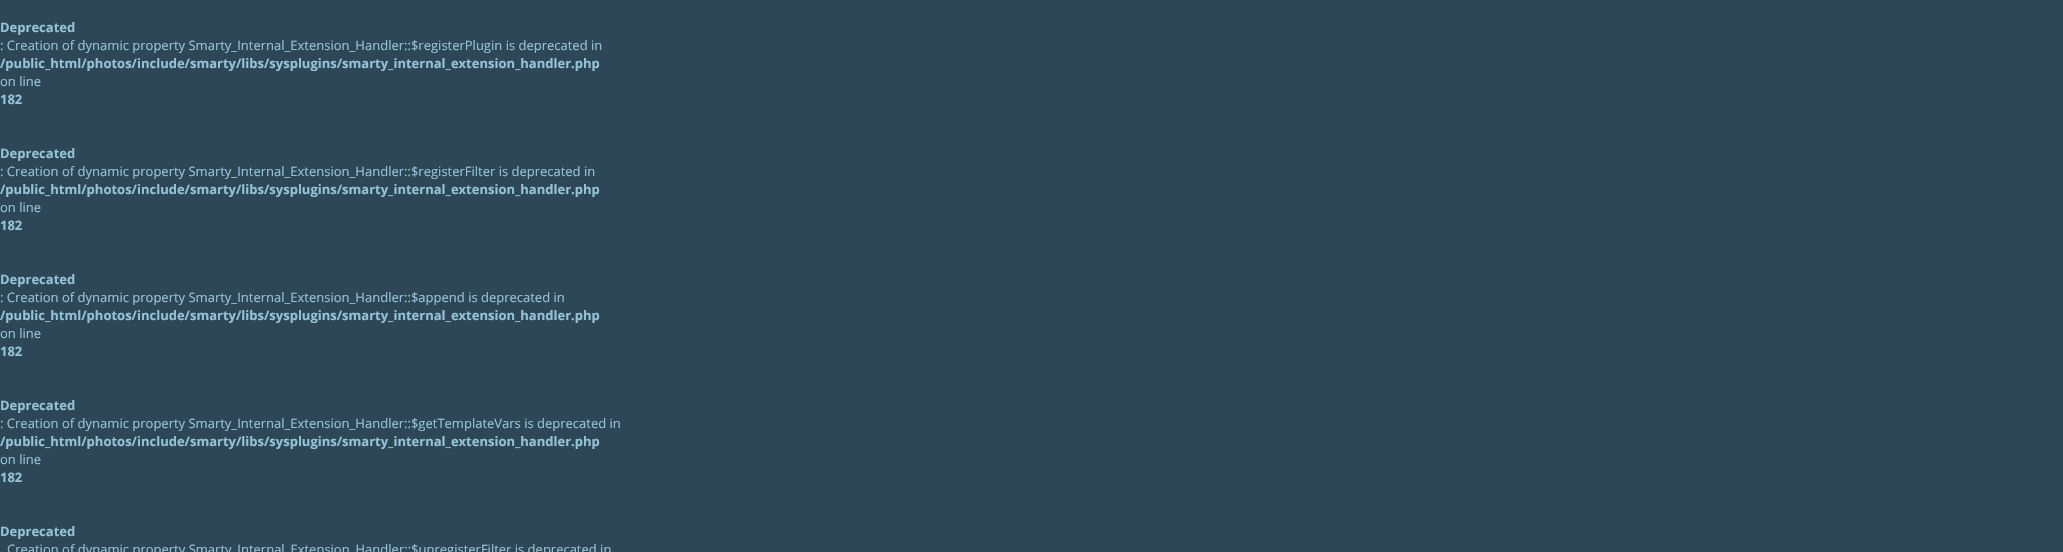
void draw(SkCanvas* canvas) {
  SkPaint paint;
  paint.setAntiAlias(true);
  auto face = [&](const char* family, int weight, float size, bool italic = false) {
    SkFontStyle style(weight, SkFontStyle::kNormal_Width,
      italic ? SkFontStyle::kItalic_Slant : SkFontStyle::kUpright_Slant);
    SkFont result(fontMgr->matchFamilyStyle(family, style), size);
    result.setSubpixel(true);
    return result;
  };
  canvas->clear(0xff2e4756);
  auto f0 = face("Open Sans", 700, 13);
  paint.setColor(0xff93c2d6);
  canvas->drawString("Deprecated", 0, 32, f0, paint);
  auto f1 = face("Open Sans", 400, 13);
  canvas->drawString(": Creation of dynamic property Smarty_Internal_Extension_Handler::$registerPlugin is deprecated in", 0, 50, f1, paint);
  canvas->drawString("/public_html/photos/include/smarty/libs/sysplugins/smarty_internal_extension_handler.php", 0, 68, f0, paint);
  canvas->drawString("on line", 0, 86, f1, paint);
  canvas->drawString("182", 0, 104, f0, paint);
  canvas->drawString("Deprecated", 0, 158, f0, paint);
  canvas->drawString(": Creation of dynamic property Smarty_Internal_Extension_Handler::$registerFilter is deprecated in", 0, 176, f1, paint);
  canvas->drawString("/public_html/photos/include/smarty/libs/sysplugins/smarty_internal_extension_handler.php", 0, 194, f0, paint);
  canvas->drawString("on line", 0, 212, f1, paint);
  canvas->drawString("182", 0, 230, f0, paint);
  canvas->drawString("Deprecated", 0, 284, f0, paint);
  canvas->drawString(": Creation of dynamic property Smarty_Internal_Extension_Handler::$append is deprecated in", 0, 302, f1, paint);
  canvas->drawString("/public_html/photos/include/smarty/libs/sysplugins/smarty_internal_extension_handler.php", 0, 320, f0, paint);
  canvas->drawString("on line", 0, 338, f1, paint);
  canvas->drawString("182", 0, 356, f0, paint);
  canvas->drawString("Deprecated", 0, 410, f0, paint);
  canvas->drawString(": Creation of dynamic property Smarty_Internal_Extension_Handler::$getTemplateVars is deprecated in", 0, 428, f1, paint);
  canvas->drawString("/public_html/photos/include/smarty/libs/sysplugins/smarty_internal_extension_handler.php", 0, 446, f0, paint);
  canvas->drawString("on line", 0, 464, f1, paint);
  canvas->drawString("182", 0, 482, f0, paint);
  canvas->drawString("Deprecated", 0, 536, f0, paint);
  canvas->drawString("Creation of dynamic property Smarty_Internal_Extension_Handler::$unregisterFilter is deprecated in", 7, 554, f1, paint);
}
